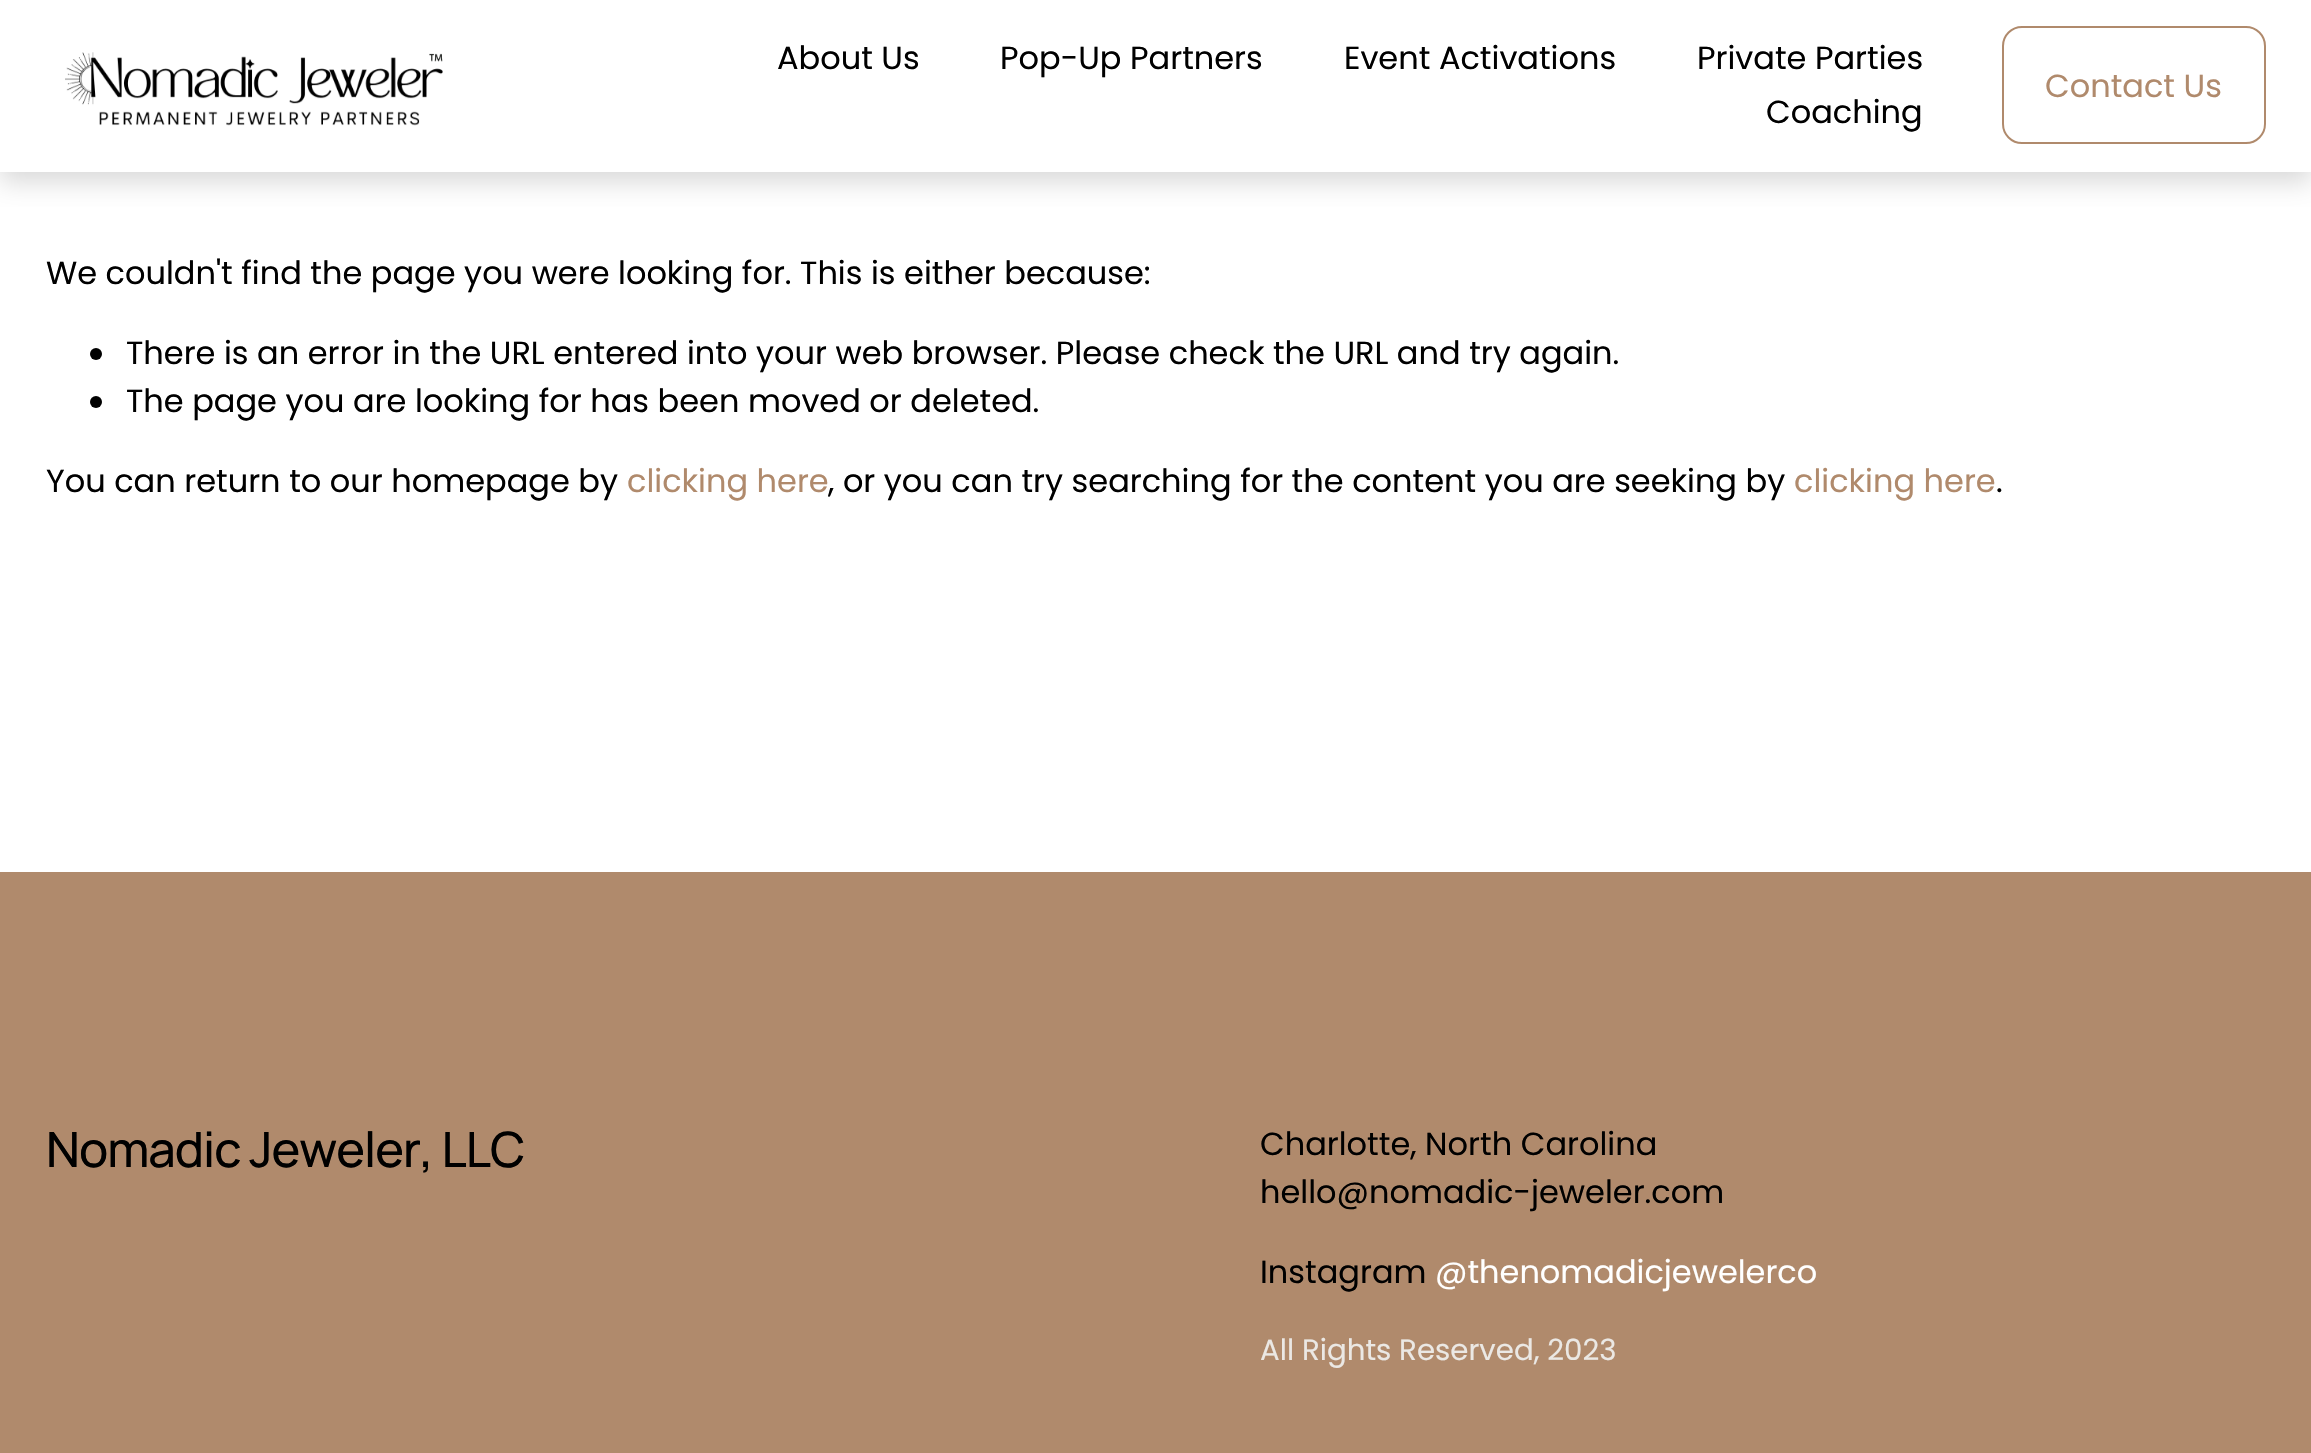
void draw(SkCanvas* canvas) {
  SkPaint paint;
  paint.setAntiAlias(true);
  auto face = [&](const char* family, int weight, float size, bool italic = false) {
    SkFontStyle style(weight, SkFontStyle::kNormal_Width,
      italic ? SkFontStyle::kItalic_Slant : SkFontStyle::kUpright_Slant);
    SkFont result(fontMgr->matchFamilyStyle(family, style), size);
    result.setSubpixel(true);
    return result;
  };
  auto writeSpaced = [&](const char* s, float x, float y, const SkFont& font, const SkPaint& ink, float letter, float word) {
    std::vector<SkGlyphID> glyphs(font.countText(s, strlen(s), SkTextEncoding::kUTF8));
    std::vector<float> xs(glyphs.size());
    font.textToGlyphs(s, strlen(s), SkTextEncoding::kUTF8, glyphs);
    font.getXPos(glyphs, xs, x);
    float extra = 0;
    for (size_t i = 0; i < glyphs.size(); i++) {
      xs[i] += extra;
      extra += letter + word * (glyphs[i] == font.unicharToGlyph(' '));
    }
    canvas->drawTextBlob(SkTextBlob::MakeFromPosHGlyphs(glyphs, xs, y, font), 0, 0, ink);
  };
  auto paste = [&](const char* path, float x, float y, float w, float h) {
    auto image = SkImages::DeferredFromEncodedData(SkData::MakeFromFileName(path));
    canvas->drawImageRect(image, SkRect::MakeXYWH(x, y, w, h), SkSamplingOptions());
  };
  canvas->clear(0xffffffff);
  canvas->save();
  canvas->clipRect(SkRect::MakeXYWH(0, 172, 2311, 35));
  paint.setColor(0xffd9d9d9);
  paint.setMaskFilter(SkMaskFilter::MakeBlur(kNormal_SkBlurStyle, 12));
  canvas->drawRect(SkRect::MakeXYWH(0, 10, 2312, 172), paint);
  paint.setMaskFilter(nullptr);
  canvas->restore();
  paste("img/1.png", 65, 52, 378, 74);
  paint.setStroke(true);
  paint.setStrokeWidth(2);
  paint.setColor(0xffb08a6c);
  canvas->drawRoundRect(SkRect::MakeXYWH(2003, 27, 262, 116), 19, 19, paint);
  paint.setStroke(false);
  paint.setColor(0xff000000);
  canvas->drawCircle(96, 354, 6, paint);
  canvas->drawCircle(96, 402, 6, paint);
  paint.setColor(0xffb08a6c);
  canvas->drawRect(SkRect::MakeXYWH(0, 872, 2311, 581), paint);
  auto f0 = face("Poppins", 400, 32);
  paint.setColor(0xff000000);
  {
    const struct { const char* s; float x, y; } items[] = {
      {"About Us", 777, 69},
      {"Pop-Up Partners", 1000, 69},
      {"Event Activations", 1344, 69},
      {"Private Parties", 1697, 69},
      {"Coaching", 1766, 123},
    };
    for (auto [s, x, y] : items) {
      canvas->drawString(s, x, y, f0, paint);
    }
  }
  paint.setColor(0xffb08a6c);
  canvas->drawString("Contact Us", 2045, 97, f0, paint);
  paint.setColor(0xff000000);
  {
    const struct { const char* s; float x, y; } items[] = {
      {"We couldn't find the page you were looking for. This is either because:", 46, 284},
      {"There is an error in the URL entered into your web browser. Please check the URL and try again.", 126, 364},
      {"The page you are looking for has been moved or deleted.", 126, 412},
      {"You can return to our homepage by", 46, 492},
    };
    for (auto [s, x, y] : items) {
      canvas->drawString(s, x, y, f0, paint);
    }
  }
  paint.setColor(0xffb08a6c);
  canvas->drawString("clicking here", 627, 492, f0, paint);
  paint.setColor(0xff000000);
  canvas->drawString(", or you can try searching for the content you are seeking by", 828, 492, f0, paint);
  paint.setColor(0xffb08a6c);
  canvas->drawString("clicking here", 1794, 492, f0, paint);
  paint.setColor(0xff000000);
  canvas->drawString(".", 1996, 492, f0, paint);
  auto f1 = face("Manrope", 500, 48.75f);
  writeSpaced("Nomadic Jeweler, LLC", 46, 1167, f1, paint, -1, 0);
  {
    const struct { const char* s; float x, y; } items[] = {
      {"Charlotte, North Carolina", 1260, 1155},
      {"hello@nomadic-jeweler.com", 1260, 1203},
      {"Instagram", 1260, 1283},
    };
    for (auto [s, x, y] : items) {
      canvas->drawString(s, x, y, f0, paint);
    }
  }
  paint.setColor(0xffffffff);
  canvas->drawString("@thenomadicjewelerco", 1435, 1283, f0, paint);
  auto f2 = face("Poppins", 400, 29.25f);
  paint.setColor(0xffebe8e4);
  canvas->drawString("All Rights Reserved, 2023", 1260, 1360, f2, paint);
}
